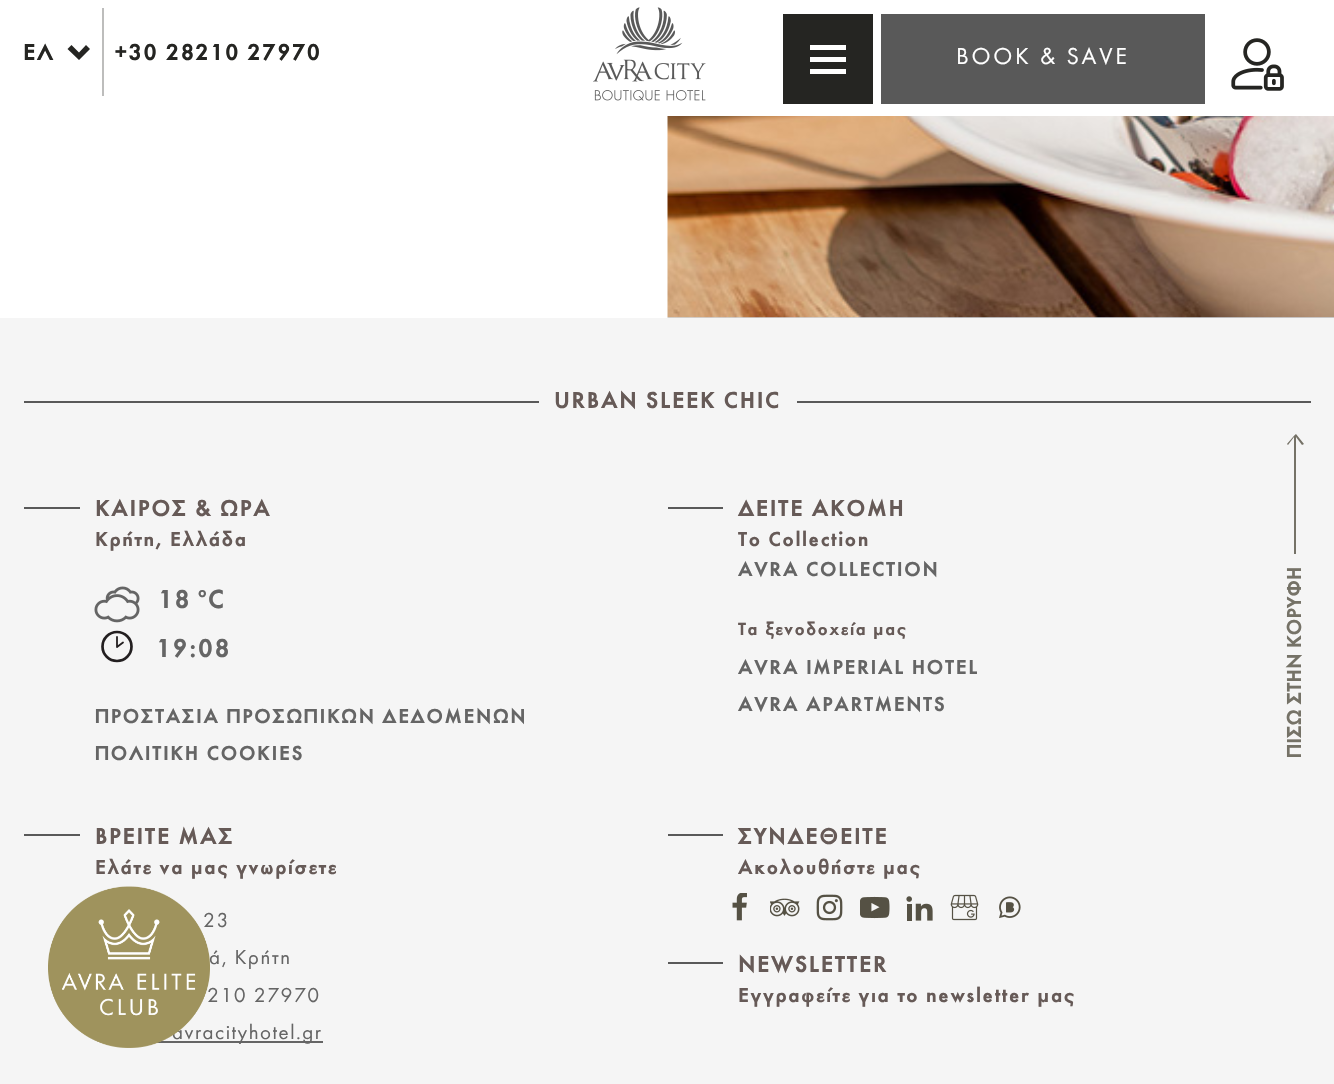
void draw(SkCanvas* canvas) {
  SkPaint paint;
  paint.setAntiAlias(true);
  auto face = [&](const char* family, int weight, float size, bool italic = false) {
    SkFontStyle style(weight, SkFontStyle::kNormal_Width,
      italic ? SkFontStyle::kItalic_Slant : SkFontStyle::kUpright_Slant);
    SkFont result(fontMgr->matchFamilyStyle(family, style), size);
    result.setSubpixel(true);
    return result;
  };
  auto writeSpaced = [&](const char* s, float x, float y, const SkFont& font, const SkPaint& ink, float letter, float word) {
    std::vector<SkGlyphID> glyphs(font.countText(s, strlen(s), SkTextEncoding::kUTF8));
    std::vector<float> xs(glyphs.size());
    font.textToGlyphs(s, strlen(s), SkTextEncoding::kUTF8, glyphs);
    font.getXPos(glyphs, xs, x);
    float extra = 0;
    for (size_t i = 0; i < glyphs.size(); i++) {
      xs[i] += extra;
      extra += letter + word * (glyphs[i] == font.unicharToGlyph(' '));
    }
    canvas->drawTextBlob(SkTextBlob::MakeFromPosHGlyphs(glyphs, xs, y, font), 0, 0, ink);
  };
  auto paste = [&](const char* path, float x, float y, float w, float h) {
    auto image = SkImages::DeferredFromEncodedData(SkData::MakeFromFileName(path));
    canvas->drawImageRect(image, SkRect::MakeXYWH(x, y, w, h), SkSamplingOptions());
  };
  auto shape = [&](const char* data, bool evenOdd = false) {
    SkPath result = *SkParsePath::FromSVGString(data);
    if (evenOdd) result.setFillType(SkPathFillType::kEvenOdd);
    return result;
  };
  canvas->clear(0xffffffff);
  paint.setColor(0xffbdbdbc);
  canvas->drawRect(SkRect::MakeXYWH(102, 8, 2, 88), paint);
  paint.setColor(0xff252522);
  canvas->drawPath(shape("M67.5 49L71.5 45L79 52.5L86 45L90 49L79 60Z"), paint);
  paste("img/1.png", 593, 7, 113, 94);
  {
    const struct { float x, y, w, h; SkColor color; } items[] = {
      {783, 14, 90, 90, 0xff252522},
      {810, 45, 36, 5, 0xffffffff},
      {810, 57, 36, 5, 0xffffffff},
      {810, 69, 36, 5, 0xffffffff},
      {881, 14, 324, 90, 0xff595959},
    };
    for (auto [x, y, w, h, color] : items) {
      paint.setColor(color);
      canvas->drawRect(SkRect::MakeXYWH(x, y, w, h), paint);
    }
  }
  paste("img/2.png", 1231, 38, 53, 53);
  paste("img/3.png", 667, 116, 667, 202);
  {
    const struct { float x, y, w, h; SkColor color; } items[] = {
      {0, 318, 1334, 766, 0xfff5f5f5},
      {24, 401, 515, 2, 0xff595959},
      {797, 401, 514, 2, 0xff595959},
      {24, 507, 56, 2, 0xff595959},
    };
    for (auto [x, y, w, h, color] : items) {
      paint.setColor(color);
      canvas->drawRect(SkRect::MakeXYWH(x, y, w, h), paint);
    }
  }
  paste("img/4.png", 94, 586, 46, 37);
  paint.setStroke(true);
  paint.setStrokeWidth(2.7f);
  paint.setColor(0xff231f20);
  canvas->drawCircle(117, 646.5f, 14.5f, paint);
  paint.setStrokeWidth(1.8f);
  paint.setStrokeCap(SkPaint::kRound_Cap);
  paint.setStrokeJoin(SkPaint::kRound_Join);
  canvas->drawPath(shape("M117 637V647L123 642.5"), paint);
  paint.setStroke(false);
  {
    const struct { float x, y, w, h; SkColor color; } items[] = {
      {668, 507, 55, 2, 0xff595959},
      {24, 834, 56, 2, 0xff595959},
      {156, 1041, 167, 2, 0xff656565},
      {668, 834, 55, 2, 0xff595959},
    };
    for (auto [x, y, w, h, color] : items) {
      paint.setColor(color);
      canvas->drawRect(SkRect::MakeXYWH(x, y, w, h), paint);
    }
  }
  paste("img/5.png", 732, 893, 15, 28);
  paste("img/6.png", 770, 898, 30, 19);
  paste("img/7.png", 816, 894, 27, 27);
  paste("img/8.png", 860, 896, 30, 23);
  paste("img/9.png", 906, 896, 27, 25);
  paste("img/10.png", 950, 894, 29, 27);
  paste("img/11.png", 999, 896, 22, 23);
  canvas->drawRect(SkRect::MakeXYWH(668, 962, 55, 2), paint);
  paint.setColor(0xff757267);
  canvas->drawPath(shape("M1304 444L1296 434C1295 434 1288 443 1287 444L1288 445L1294 437V554H1296V437L1302 445Z"), paint);
  auto f0 = face("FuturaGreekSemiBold", 600, 24);
  paint.setColor(0xff252522);
  writeSpaced("ΕΛ", 23, 60, f0, paint, 1.5f, 0);
  writeSpaced("+30 28210 27970", 114, 60, f0, paint, 1.5f, 0);
  auto f1 = face("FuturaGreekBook", 400, 24);
  paint.setColor(0xffffffff);
  writeSpaced("BOOK & SAVE", 956, 64, f1, paint, 2.75f, 0);
  paint.setColor(0xff665a57);
  writeSpaced("URBAN SLEEK CHIC", 554, 408, f0, paint, 1.5f, 0);
  writeSpaced("ΚΑΙΡΟΣ & ΩΡΑ", 95, 516, f0, paint, 1.5f, 0);
  auto f2 = face("FuturaGreekSemiBold", 600, 21);
  writeSpaced("Κρήτη, Ελλάδα", 95, 546, f2, paint, 1.5f, 0);
  auto f3 = face("FuturaGreekSemiBold", 600, 27);
  paint.setColor(0xff656565);
  writeSpaced("18", 158, 608, f3, paint, 1.5f, 0);
  auto f4 = face("FuturaGreekSemiBold", 600, 16);
  writeSpaced("o", 198, 597, f4, paint, 1.5f, 0);
  writeSpaced("C", 208, 608, f3, paint, 1.5f, 0);
  writeSpaced("19:08", 156, 657, f3, paint, 1.5f, 0);
  writeSpaced("ΠΡΟΣΤΑΣΙΑ ΠΡΟΣΩΠΙΚΩΝ ΔΕΔΟΜΕΝΩΝ", 95, 723, f2, paint, 1.5f, 0);
  writeSpaced("ΠΟΛΙΤΙΚΗ COOKIES", 95, 760, f2, paint, 1.5f, 0);
  paint.setColor(0xff665a57);
  writeSpaced("ΔΕΙΤΕ AKOMH", 738, 516, f0, paint, 1.5f, 0);
  writeSpaced("Το Collection", 738, 546, f2, paint, 1.5f, 0);
  paint.setColor(0xff656565);
  writeSpaced("AVRA COLLECTION", 738, 576, f2, paint, 1.5f, 0);
  auto f5 = face("FuturaGreekSemiBold", 600, 18.4f);
  paint.setColor(0xff665a57);
  writeSpaced("Τα ξενοδοχεία μας", 738, 635, f5, paint, 1.5f, 0);
  paint.setColor(0xff656565);
  writeSpaced("AVRA IMPERIAL HOTEL", 738, 674, f2, paint, 1.5f, 0);
  writeSpaced("AVRA APARTMENTS", 738, 711, f2, paint, 1.5f, 0);
  paint.setColor(0xff665a57);
  writeSpaced("ΒΡΕΙΤΕ ΜΑΣ", 95, 844, f0, paint, 1.5f, 0);
  writeSpaced("Ελάτε να μας γνωρίσετε", 95, 874, f2, paint, 1.5f, 0);
  auto f6 = face("FuturaGreekBook", 400, 21);
  paint.setColor(0xff656565);
  {
    const struct { const char* s; float x, y; } items[] = {
      {"23", 203, 927},
      {"ά, Κρήτη", 209, 964},
      {"210 27970", 207, 1002},
      {"avracityhotel.gr", 172, 1039},
    };
    for (auto [s, x, y] : items) {
      writeSpaced(s, x, y, f6, paint, 1.5f, 0);
    }
  }
  paint.setColor(0xff665a57);
  writeSpaced("ΣΥΝΔΕΘΕΙΤΕ", 738, 844, f0, paint, 1.5f, 0);
  writeSpaced("Ακολουθήστε μας", 738, 874, f2, paint, 1.5f, 0);
  writeSpaced("NEWSLETTER", 738, 972, f0, paint, 1.5f, 0);
  writeSpaced("Εγγραφείτε για το newsletter μας", 738, 1002, f2, paint, 1.5f, 0);
  paint.setColor(0xff757267);
  canvas->save();
  canvas->rotate(-90, 1301, 758);
  canvas->drawString("ΠΙΣΩ ΣΤΗΝ ΚΟΡΥΦΗ", 1301, 758, f2, paint);
  canvas->restore();
  paste("img/12.png", 48, 886, 162, 162);
}
